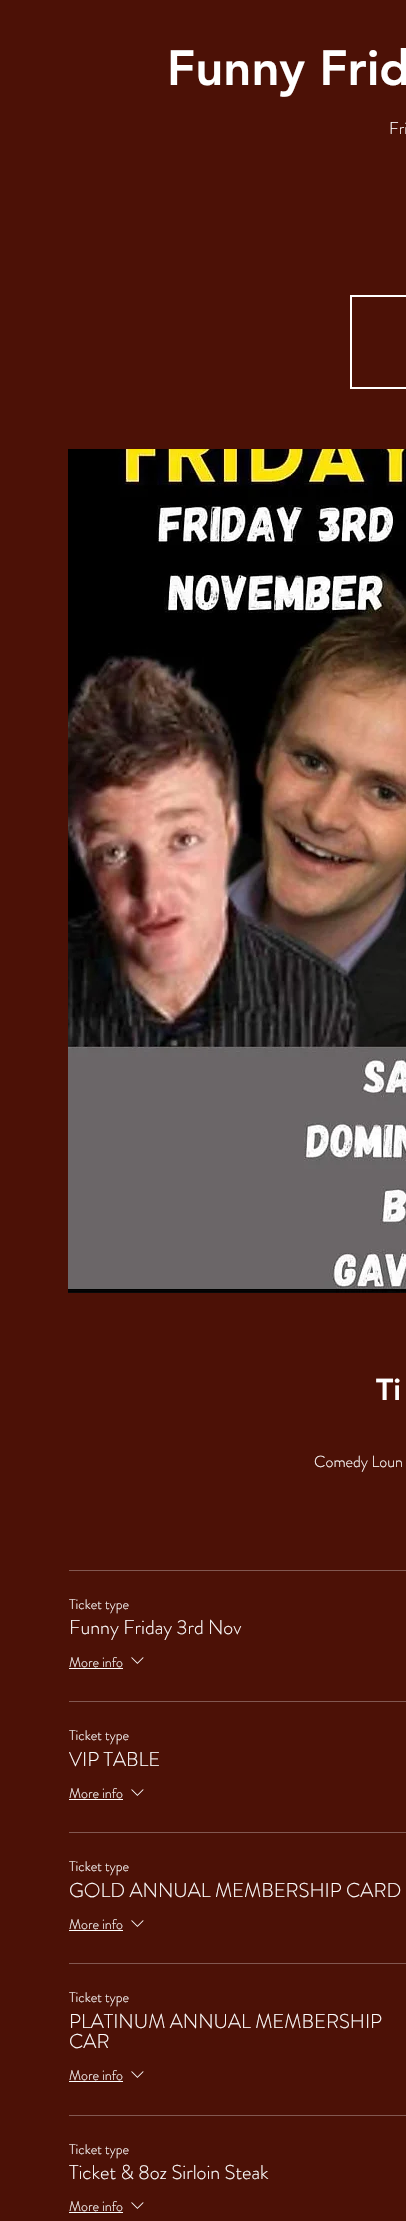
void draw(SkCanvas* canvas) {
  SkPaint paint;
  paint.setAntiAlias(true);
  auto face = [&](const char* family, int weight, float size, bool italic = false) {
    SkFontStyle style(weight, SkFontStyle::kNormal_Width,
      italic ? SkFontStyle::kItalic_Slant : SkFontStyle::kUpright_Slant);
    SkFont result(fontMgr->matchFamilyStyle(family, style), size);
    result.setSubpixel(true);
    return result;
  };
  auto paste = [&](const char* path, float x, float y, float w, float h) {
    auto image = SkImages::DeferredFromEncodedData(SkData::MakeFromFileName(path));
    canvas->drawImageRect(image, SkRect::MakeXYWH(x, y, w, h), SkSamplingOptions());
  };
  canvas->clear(0xff4c1106);
  paint.setStroke(true);
  paint.setStrokeWidth(2);
  paint.setColor(0xffffffff);
  canvas->drawRect(SkRect::MakeXYWH(351, 296, 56, 92), paint);
  paste("img/1.png", 68, 449, 338, 844);
  paint.setStroke(false);
  {
    const struct { float x, y, w, h; SkColor color; } items[] = {
      {69, 1570, 337, 1, 0xff825851},
      {69, 1701, 337, 1, 0xff825851},
      {69, 1668, 54, 1, 0xffffffff},
    };
    for (auto [x, y, w, h, color] : items) {
      paint.setColor(color);
      canvas->drawRect(SkRect::MakeXYWH(x, y, w, h), paint);
    }
  }
  paste("img/2.png", 131, 1657, 13, 7);
  paint.setColor(0xff825851);
  canvas->drawRect(SkRect::MakeXYWH(69, 1832, 337, 1), paint);
  paint.setColor(0xffffffff);
  canvas->drawRect(SkRect::MakeXYWH(69, 1799, 54, 1), paint);
  paste("img/2.png", 131, 1789, 13, 7);
  paint.setColor(0xff825851);
  canvas->drawRect(SkRect::MakeXYWH(69, 1963, 337, 1), paint);
  paint.setColor(0xffffffff);
  canvas->drawRect(SkRect::MakeXYWH(69, 1930, 54, 1), paint);
  paste("img/2.png", 131, 1920, 13, 7);
  paint.setColor(0xff825851);
  canvas->drawRect(SkRect::MakeXYWH(69, 2115, 337, 1), paint);
  paint.setColor(0xffffffff);
  canvas->drawRect(SkRect::MakeXYWH(69, 2081, 54, 1), paint);
  paste("img/2.png", 131, 2071, 13, 7);
  canvas->drawRect(SkRect::MakeXYWH(69, 2212, 54, 1), paint);
  paste("img/2.png", 131, 2202, 13, 7);
  auto f0 = face("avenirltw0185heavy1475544", 900, 49);
  canvas->drawString("Funny Frid", 167, 85, f0, paint);
  auto f1 = face("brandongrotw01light", 300, 17);
  canvas->drawString("Fri", 389, 134, f1, paint);
  auto f2 = face("avenirltw0185heavy1475544", 900, 30);
  canvas->drawString("Ti", 376, 1400, f2, paint);
  auto f3 = face("brandongrotw01light", 300, 16);
  canvas->drawString("Comedy Loun", 314, 1467, f3, paint);
  auto f4 = face("brandongrotw01light", 300, 14);
  canvas->drawString("Ticket type", 69, 1609, f4, paint);
  auto f5 = face("brandongrotw01light", 300, 20);
  canvas->drawString("Funny Friday 3rd Nov", 69, 1634, f5, paint);
  canvas->drawString("More info", 69, 1667, f4, paint);
  canvas->drawString("Ticket type", 69, 1740, f4, paint);
  canvas->drawString("VIP TABLE", 69, 1766, f5, paint);
  canvas->drawString("More info", 69, 1798, f4, paint);
  canvas->drawString("Ticket type", 69, 1871, f4, paint);
  canvas->drawString("GOLD ANNUAL MEMBERSHIP CARD", 69, 1897, f5, paint);
  canvas->drawString("More info", 69, 1929, f4, paint);
  canvas->drawString("Ticket type", 69, 2002, f4, paint);
  canvas->drawString("PLATINUM ANNUAL MEMBERSHIP", 69, 2028, f5, paint);
  canvas->drawString("CAR", 69, 2048, f5, paint);
  canvas->drawString("More info", 69, 2080, f4, paint);
  canvas->drawString("Ticket type", 69, 2154, f4, paint);
  canvas->drawString("Ticket & 8oz Sirloin Steak", 69, 2179, f5, paint);
  canvas->drawString("More info", 69, 2211, f4, paint);
}
